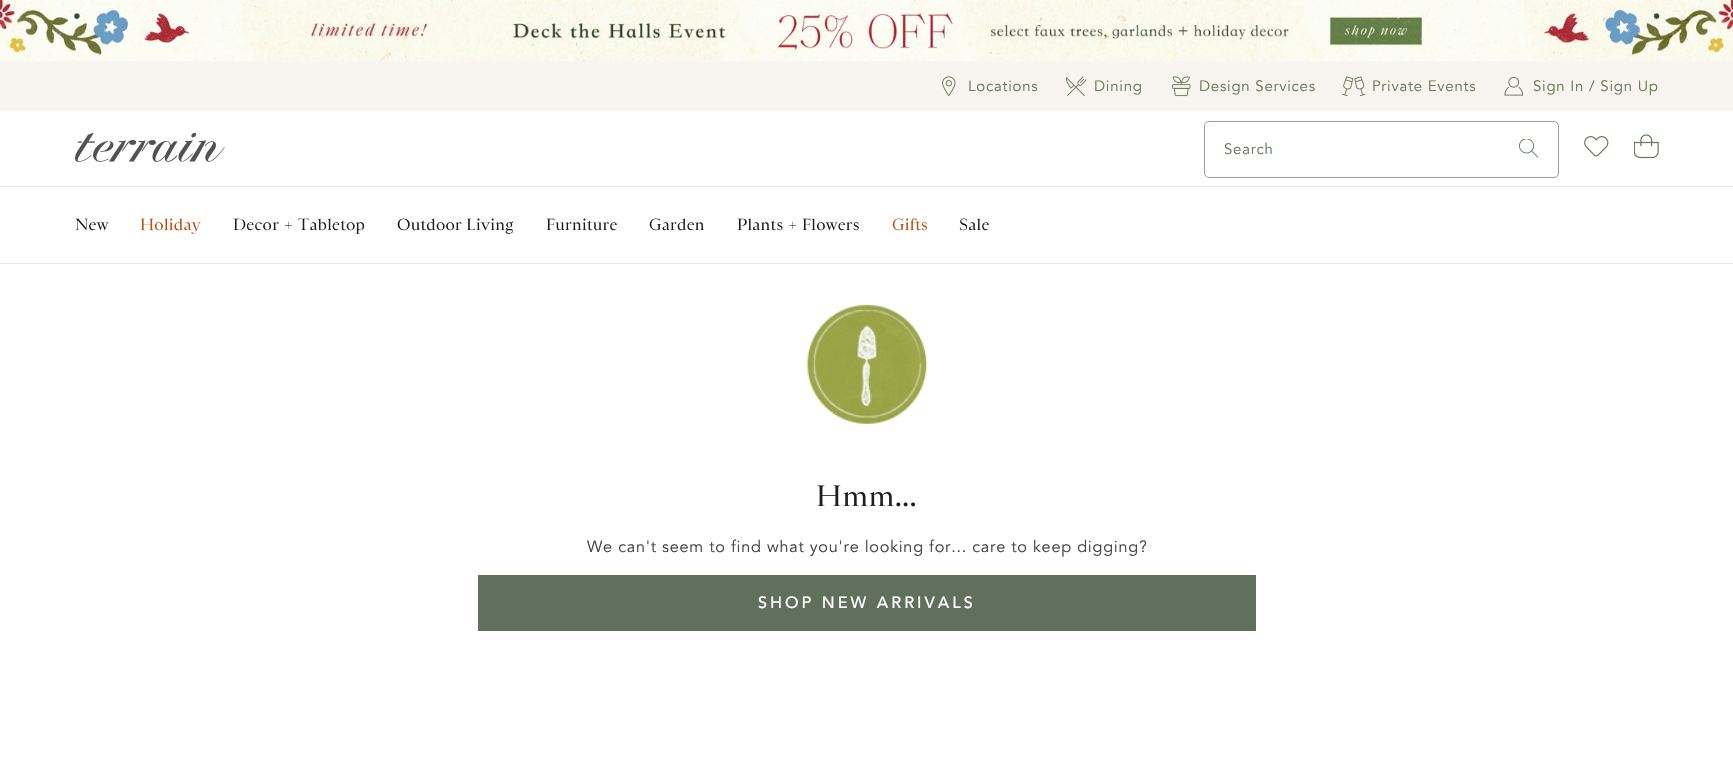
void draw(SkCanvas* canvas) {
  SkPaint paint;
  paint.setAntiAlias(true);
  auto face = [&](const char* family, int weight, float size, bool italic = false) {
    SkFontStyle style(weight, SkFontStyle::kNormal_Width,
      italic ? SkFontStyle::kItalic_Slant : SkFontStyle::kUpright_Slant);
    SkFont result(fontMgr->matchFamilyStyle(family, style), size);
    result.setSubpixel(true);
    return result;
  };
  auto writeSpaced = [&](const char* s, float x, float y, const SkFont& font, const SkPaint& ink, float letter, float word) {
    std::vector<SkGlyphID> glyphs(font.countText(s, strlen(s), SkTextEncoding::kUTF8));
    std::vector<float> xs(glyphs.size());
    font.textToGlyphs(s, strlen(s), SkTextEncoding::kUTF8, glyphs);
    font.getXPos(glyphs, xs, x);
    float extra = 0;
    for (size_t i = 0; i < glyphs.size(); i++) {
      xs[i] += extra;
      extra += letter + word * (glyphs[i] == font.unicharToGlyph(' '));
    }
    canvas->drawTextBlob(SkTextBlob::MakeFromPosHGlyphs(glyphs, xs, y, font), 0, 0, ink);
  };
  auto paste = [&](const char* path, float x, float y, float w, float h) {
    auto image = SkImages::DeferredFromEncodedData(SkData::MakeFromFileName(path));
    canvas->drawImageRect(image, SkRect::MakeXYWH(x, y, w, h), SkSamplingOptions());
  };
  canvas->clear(0xffffffff);
  paint.setColor(0xfff8f5f1);
  canvas->drawRect(SkRect::MakeXYWH(0, 61, 1733, 50), paint);
  paste("img/1.png", 0, 0, 1733, 62);
  paste("img/2.png", 942, 76, 14, 20);
  paste("img/3.png", 1066, 76, 21, 20);
  paste("img/4.png", 1172, 76, 19, 21);
  paste("img/5.png", 1342, 76, 24, 21);
  paste("img/6.png", 1504, 76, 20, 20);
  paint.setColor(0xffece8e2);
  canvas->drawRect(SkRect::MakeXYWH(0, 263, 1733, 1), paint);
  paste("img/7.png", 75, 133, 150, 29);
  paint.setStroke(true);
  paint.setStrokeWidth(1);
  paint.setColor(0xff9e9a9a);
  canvas->drawRoundRect(SkRect::MakeXYWH(1204.5f, 121.5f, 354, 56), 4.5f, 4.5f, paint);
  paste("img/8.png", 1519, 139, 20, 19);
  paste("img/9.png", 1584, 136, 25, 21);
  paste("img/10.png", 1634, 134, 25, 25);
  paint.setStroke(false);
  paint.setColor(0xffece8e2);
  canvas->drawRect(SkRect::MakeXYWH(0, 186, 1733, 1), paint);
  paste("img/11.png", 807, 304, 120, 120);
  paint.setColor(0xff60705c);
  canvas->drawRect(SkRect::MakeXYWH(478, 575, 778, 56), paint);
  auto f0 = face("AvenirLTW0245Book", 400, 15);
  paint.setColor(0xff697b5b);
  {
    const struct { const char* s; float x, y; } items[] = {
      {"Locations", 968, 91},
      {"Dining", 1094, 91},
      {"Design Services", 1199, 91},
      {"Private Events", 1372, 91},
      {"Sign In / Sign Up", 1533, 91},
      {"Search", 1224, 154},
    };
    for (auto [s, x, y] : items) {
      writeSpaced(s, x, y, f0, paint, 0.75f, 0);
    }
  }
  auto f1 = face("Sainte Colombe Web", 400, 15);
  paint.setColor(0xff1e1d1d);
  writeSpaced("New", 75, 230, f1, paint, 0.25f, 0);
  paint.setColor(0xffb9490e);
  writeSpaced("Holiday", 140, 230, f1, paint, 0.25f, 0);
  paint.setColor(0xff1e1d1d);
  {
    const struct { const char* s; float x, y; } items[] = {
      {"Decor + Tabletop", 233, 230},
      {"Outdoor Living", 397, 230},
      {"Furniture", 546, 230},
      {"Garden", 649, 230},
      {"Plants + Flowers", 737, 230},
    };
    for (auto [s, x, y] : items) {
      writeSpaced(s, x, y, f1, paint, 0.25f, 0);
    }
  }
  paint.setColor(0xffb9490e);
  writeSpaced("Gifts", 892, 230, f1, paint, 0.25f, 0);
  paint.setColor(0xff1e1d1d);
  writeSpaced("Sale", 959, 230, f1, paint, 0.25f, 0);
  auto f2 = face("Sainte Colombe Web", 400, 27.5f);
  writeSpaced("Hmm...", 816, 506, f2, paint, 0.25f, 0);
  auto f3 = face("AvenirLTW0245Book", 400, 16.25f);
  paint.setColor(0xff454343);
  writeSpaced("We can't seem to find what you're looking for... care to keep digging?", 587, 552, f3, paint, 0.75f, 0);
  auto f4 = face("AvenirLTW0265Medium", 500, 16.25f);
  paint.setColor(0xffffffff);
  writeSpaced("SHOP NEW ARRIVALS", 758, 608, f4, paint, 3, 0);
}
